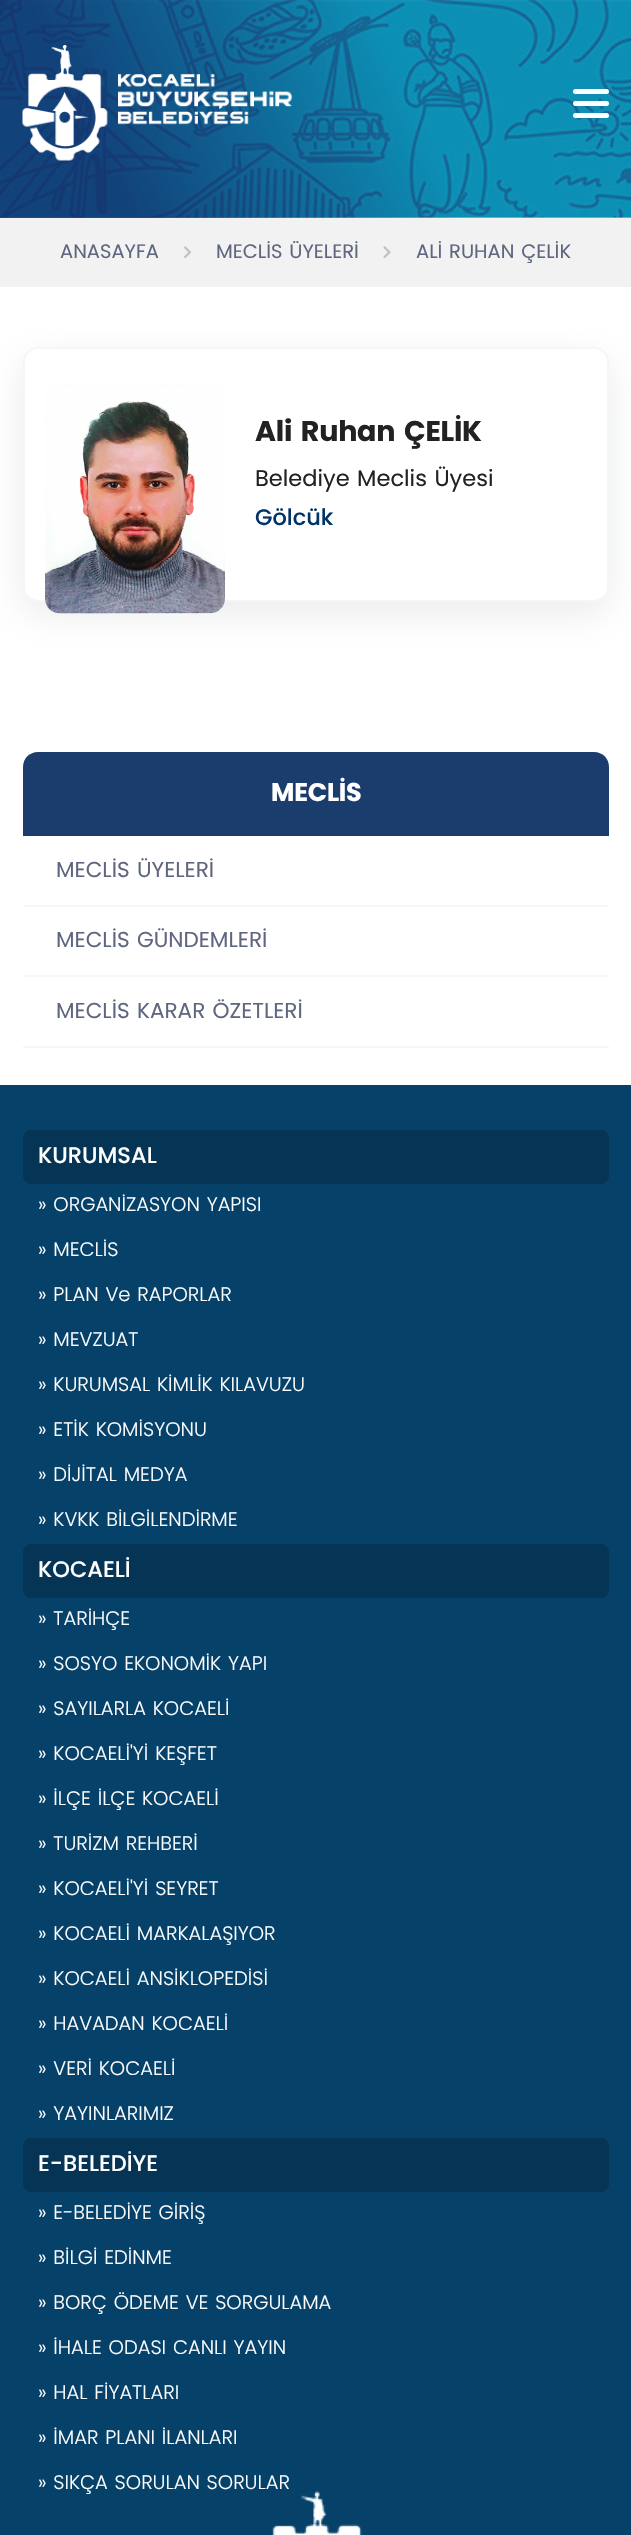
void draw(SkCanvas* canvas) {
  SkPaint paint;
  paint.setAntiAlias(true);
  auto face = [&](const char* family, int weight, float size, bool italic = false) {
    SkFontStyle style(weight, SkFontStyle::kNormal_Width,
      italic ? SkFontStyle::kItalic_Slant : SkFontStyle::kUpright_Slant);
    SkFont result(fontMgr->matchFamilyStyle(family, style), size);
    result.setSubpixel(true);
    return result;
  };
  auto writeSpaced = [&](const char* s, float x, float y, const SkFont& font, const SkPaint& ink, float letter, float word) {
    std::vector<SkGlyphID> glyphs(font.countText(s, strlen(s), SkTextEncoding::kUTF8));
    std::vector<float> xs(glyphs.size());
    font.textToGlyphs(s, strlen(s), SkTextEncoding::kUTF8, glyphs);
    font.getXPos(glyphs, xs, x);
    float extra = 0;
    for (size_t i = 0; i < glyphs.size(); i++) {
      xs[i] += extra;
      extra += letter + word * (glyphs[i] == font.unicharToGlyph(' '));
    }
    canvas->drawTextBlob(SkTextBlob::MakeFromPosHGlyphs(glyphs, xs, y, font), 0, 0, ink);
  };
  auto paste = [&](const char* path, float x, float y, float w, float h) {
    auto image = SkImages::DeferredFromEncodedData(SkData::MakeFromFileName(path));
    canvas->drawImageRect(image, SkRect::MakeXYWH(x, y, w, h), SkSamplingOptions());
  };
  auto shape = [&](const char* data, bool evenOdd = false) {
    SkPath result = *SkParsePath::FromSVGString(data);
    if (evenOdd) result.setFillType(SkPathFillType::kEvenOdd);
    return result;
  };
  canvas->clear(0xffffffff);
  paint.setColor(0xffc1cfe2);
  canvas->drawRect(SkRect::MakeXYWH(0, 217, 631, 1), paint);
  paste("img/1.png", 0, 0, 631, 218);
  {
    const SkColor colors[] = {0xbf132866, 0x00132866};
    const float stops[] = {0.18f, 0.64f};
    const SkPoint ends[] = {{15, 250}, {616, -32}};
    paint.setShader(SkGradientShader::MakeLinear(ends, colors, stops, 2, SkTileMode::kClamp));
    paint.setAlpha(255);
  }
  canvas->drawRect(SkRect::MakeXYWH(0, 0, 459, 218), paint);
  paste("img/2.png", 22, 45, 271, 116);
  paint.setShader(nullptr);
  paint.setColor(0xffffffff);
  canvas->drawRoundRect(SkRect::MakeXYWH(573, 89, 36, 5), 2.5f, 2.5f, paint);
  canvas->drawRoundRect(SkRect::MakeXYWH(573, 101, 36, 5), 2.5f, 2.5f, paint);
  canvas->drawRoundRect(SkRect::MakeXYWH(573, 113, 36, 5), 2.5f, 2.5f, paint);
  paint.setColor(0xfff2f2f2);
  canvas->drawRect(SkRect::MakeXYWH(0, 218, 631, 69), paint);
  paste("img/3.png", 184, 246, 7, 12);
  paste("img/4.png", 383, 246, 8, 12);
  paint.setColor(0x33959da5);
  paint.setMaskFilter(SkMaskFilter::MakeBlur(kNormal_SkBlurStyle, 18));
  canvas->drawRoundRect(SkRect::MakeXYWH(23, 359, 586, 255), 15, 15, paint);
  paint.setMaskFilter(nullptr);
  paint.setColor(0xffffffff);
  canvas->drawRoundRect(SkRect::MakeXYWH(24, 348, 584, 253), 14, 14, paint);
  paint.setStroke(true);
  paint.setStrokeWidth(2);
  paint.setColor(0xfff5f6f7);
  canvas->drawRoundRect(SkRect::MakeXYWH(24, 348, 584, 253), 14, 14, paint);
  paste("img/5.png", 45, 384, 180, 230);
  paint.setStroke(false);
  paint.setColor(0xff1b3d6d);
  canvas->drawPath(shape("M38 752H594C602.5 752 609 758.5 609 767V836H23V767C23 758.5 29.5 752 38 752Z"), paint);
  {
    const struct { float x, y, w, h; SkColor color; } items[] = {
      {23, 905, 586, 2, 0xfff7f7f7},
      {23, 975, 586, 2, 0xfff7f7f7},
      {23, 1046, 586, 2, 0x08000000},
      {0, 1085, 631, 1450, 0xff064169},
    };
    for (auto [x, y, w, h, color] : items) {
      paint.setColor(color);
      canvas->drawRect(SkRect::MakeXYWH(x, y, w, h), paint);
    }
  }
  paint.setColor(0xff053454);
  canvas->drawRoundRect(SkRect::MakeXYWH(23, 1130, 586, 54), 8, 8, paint);
  canvas->drawRoundRect(SkRect::MakeXYWH(23, 1544, 586, 54), 8, 8, paint);
  canvas->drawRoundRect(SkRect::MakeXYWH(23, 2138, 586, 54), 8, 8, paint);
  auto f0 = face("Poppins", 400, 19.5f);
  paint.setColor(0xff5f667f);
  canvas->drawString("ANASAYFA", 60, 258, f0, paint);
  writeSpaced("MECLİS ÜYELERİ", 216, 258, f0, paint, 0, 1.5f);
  writeSpaced("ALİ RUHAN ÇELİK", 416, 258, f0, paint, 0, 1.5f);
  auto f1 = face("Poppins", 700, 28.5f);
  paint.setColor(0xff222222);
  writeSpaced("Ali Ruhan ÇELİK", 255, 441, f1, paint, -0.25f, 3);
  auto f2 = face("Poppins", 400, 22.5f);
  writeSpaced("Belediye Meclis Üyesi", 255, 486, f2, paint, 0, 1.5f);
  auto f3 = face("Poppins", 500, 22.5f);
  paint.setColor(0xff003366);
  canvas->drawString("Gölcük", 255, 525, f3, paint);
  auto f4 = face("Poppins", 700, 25.5f);
  paint.setColor(0xffffffff);
  writeSpaced("MECLİS", 271, 801, f4, paint, -0.25f, 0);
  auto f5 = face("Poppins", 400, 21.6f);
  paint.setColor(0xff5f667f);
  {
    const struct { const char* s; float x, y; } items[] = {
      {"MECLİS ÜYELERİ", 56, 877},
      {"MECLİS GÜNDEMLERİ", 56, 947},
      {"MECLİS KARAR ÖZETLERİ", 56, 1018},
    };
    for (auto [s, x, y] : items) {
      writeSpaced(s, x, y, f5, paint, 0, 1.5f);
    }
  }
  paint.setColor(0xffffffff);
  canvas->drawString("KURUMSAL", 38, 1163, f3, paint);
  auto f6 = face("Poppins", 300, 19.5f);
  {
    const struct { const char* s; float x, y; } items[] = {
      {"» ORGANİZASYON YAPISI", 38, 1211},
      {"» MECLİS", 38, 1256},
      {"» PLAN Ve RAPORLAR", 38, 1301},
      {"» MEVZUAT", 38, 1346},
      {"» KURUMSAL KİMLİK KILAVUZU", 38, 1391},
      {"» ETİK KOMİSYONU", 38, 1436},
      {"» DİJİTAL MEDYA", 38, 1481},
      {"» KVKK BİLGİLENDİRME", 38, 1526},
    };
    for (auto [s, x, y] : items) {
      writeSpaced(s, x, y, f6, paint, 0, 1.5f);
    }
  }
  canvas->drawString("KOCAELİ", 38, 1577, f3, paint);
  {
    const struct { const char* s; float x, y; } items[] = {
      {"» TARİHÇE", 38, 1625},
      {"» SOSYO EKONOMİK YAPI", 38, 1670},
      {"» SAYILARLA KOCAELİ", 38, 1715},
      {"» KOCAELİ'Yİ KEŞFET", 38, 1760},
      {"» İLÇE İLÇE KOCAELİ", 38, 1805},
      {"» TURİZM REHBERİ", 38, 1850},
      {"» KOCAELİ'Yİ SEYRET", 38, 1895},
      {"» KOCAELİ MARKALAŞIYOR", 38, 1940},
      {"» KOCAELİ ANSİKLOPEDİSİ", 38, 1985},
      {"» HAVADAN KOCAELİ", 38, 2030},
      {"» VERİ KOCAELİ", 38, 2075},
      {"» YAYINLARIMIZ", 38, 2120},
    };
    for (auto [s, x, y] : items) {
      writeSpaced(s, x, y, f6, paint, 0, 1.5f);
    }
  }
  canvas->drawString("E-BELEDİYE", 38, 2171, f3, paint);
  {
    const struct { const char* s; float x, y; } items[] = {
      {"» E-BELEDİYE GİRİŞ", 38, 2219},
      {"» BİLGİ EDİNME", 38, 2264},
      {"» BORÇ ÖDEME VE SORGULAMA", 38, 2309},
      {"» İHALE ODASI CANLI YAYIN", 38, 2354},
      {"» HAL FİYATLARI", 38, 2399},
      {"» İMAR PLANI İLANLARI", 38, 2444},
      {"» SIKÇA SORULAN SORULAR", 38, 2489},
    };
    for (auto [s, x, y] : items) {
      writeSpaced(s, x, y, f6, paint, 0, 1.5f);
    }
  }
  paste("img/6.png", 272, 2491, 90, 44);
}
